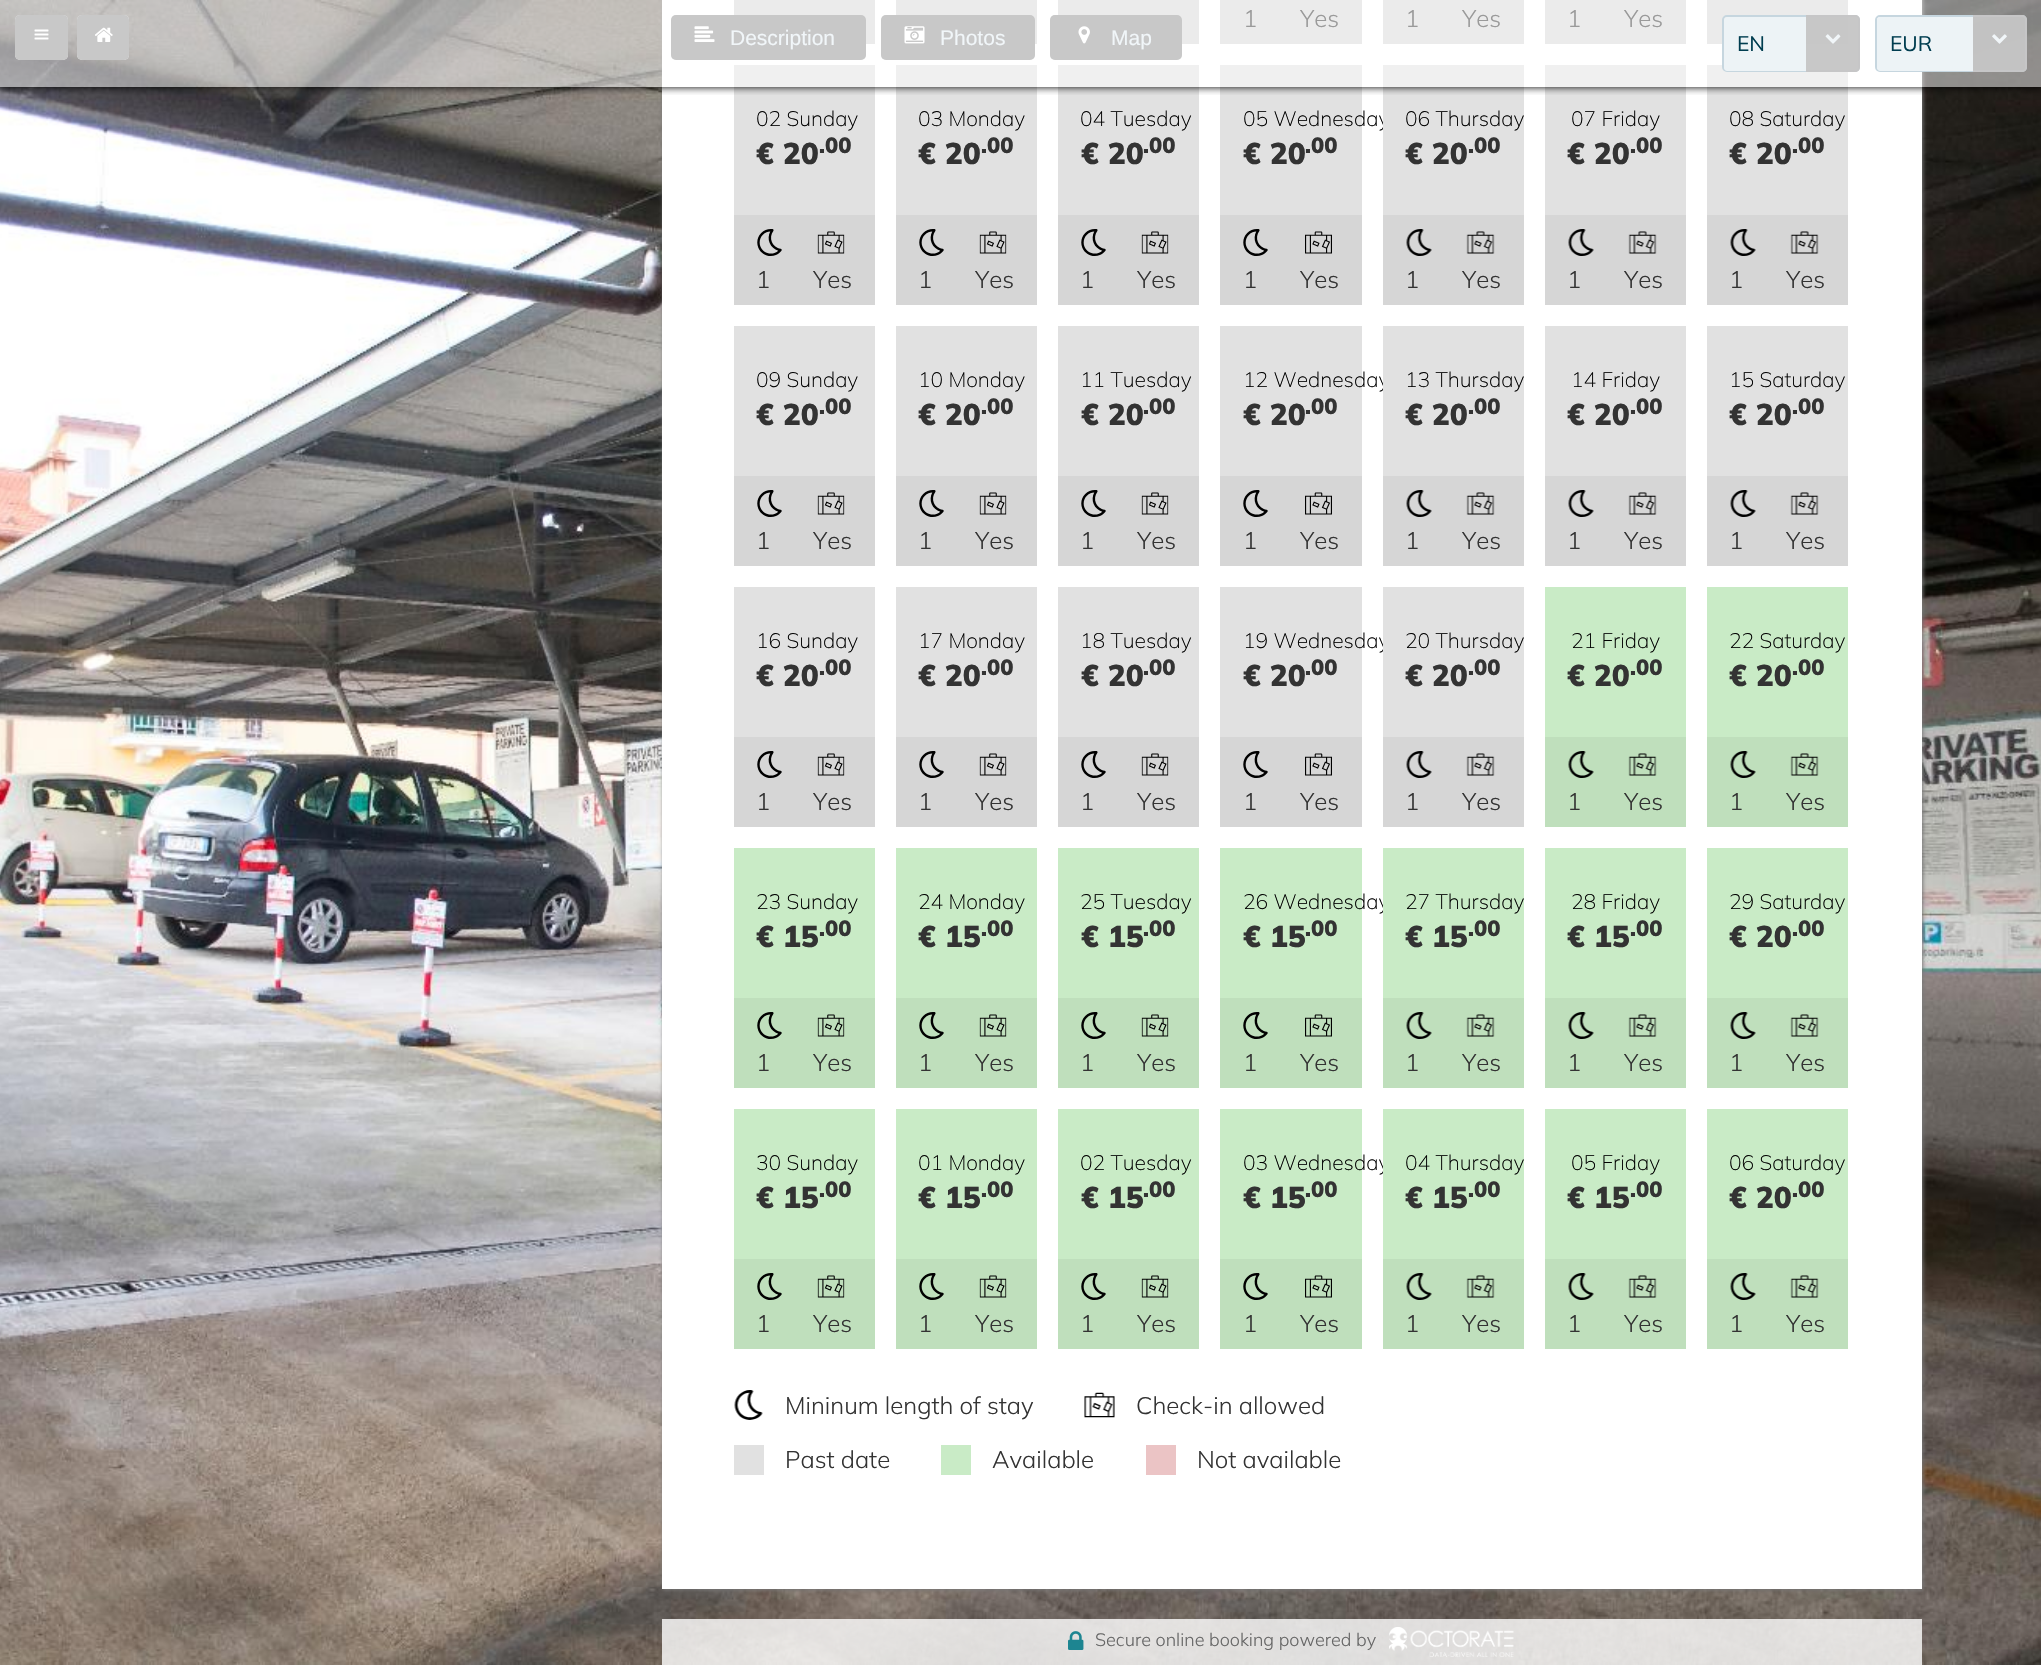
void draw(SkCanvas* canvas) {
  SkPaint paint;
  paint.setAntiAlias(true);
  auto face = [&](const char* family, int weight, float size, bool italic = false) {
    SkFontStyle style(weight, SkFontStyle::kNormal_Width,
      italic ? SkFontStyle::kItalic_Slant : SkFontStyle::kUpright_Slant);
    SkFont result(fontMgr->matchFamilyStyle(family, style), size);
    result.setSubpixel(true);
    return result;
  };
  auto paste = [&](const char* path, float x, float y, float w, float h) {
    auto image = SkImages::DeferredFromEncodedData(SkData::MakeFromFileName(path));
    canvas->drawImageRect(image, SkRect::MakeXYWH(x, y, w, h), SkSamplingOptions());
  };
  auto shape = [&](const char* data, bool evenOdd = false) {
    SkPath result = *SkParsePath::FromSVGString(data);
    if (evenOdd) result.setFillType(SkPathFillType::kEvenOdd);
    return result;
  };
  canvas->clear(0xffffffff);
  paste("img/1.png", 0, 0, 2041, 1665);
  paint.setColor(0xff777777);
  paint.setMaskFilter(SkMaskFilter::MakeBlur(kNormal_SkBlurStyle, 2));
  canvas->drawRect(SkRect::MakeXYWH(663, -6, 1260, 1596), paint);
  paint.setMaskFilter(nullptr);
  {
    const struct { float x, y, w, h; SkColor color; } items[] = {
      {662, 0, 1260, 1589, 0xffffffff},
      {734, 0, 141, 44, 0xffd6d6d6},
      {896, 0, 141, 44, 0xffd6d6d6},
      {1058, 0, 141, 44, 0xffd6d6d6},
      {1220, 0, 142, 44, 0xffd6d6d6},
      {1383, 0, 141, 44, 0xffd6d6d6},
      {1545, 0, 141, 44, 0xffd6d6d6},
      {1707, 0, 141, 44, 0xffd6d6d6},
      {734, 65, 141, 150, 0xffe1e1e1},
      {734, 215, 141, 90, 0xffd6d6d6},
    };
    for (auto [x, y, w, h, color] : items) {
      paint.setColor(color);
      canvas->drawRect(SkRect::MakeXYWH(x, y, w, h), paint);
    }
  }
  paste("img/2.png", 757, 229, 25, 27);
  paste("img/3.png", 817, 231, 28, 23);
  paint.setColor(0xffe1e1e1);
  canvas->drawRect(SkRect::MakeXYWH(896, 65, 141, 150), paint);
  paint.setColor(0xffd6d6d6);
  canvas->drawRect(SkRect::MakeXYWH(896, 215, 141, 90), paint);
  paste("img/2.png", 919, 229, 25, 27);
  paste("img/3.png", 979, 231, 28, 23);
  paint.setColor(0xffe1e1e1);
  canvas->drawRect(SkRect::MakeXYWH(1058, 65, 141, 150), paint);
  paint.setColor(0xffd6d6d6);
  canvas->drawRect(SkRect::MakeXYWH(1058, 215, 141, 90), paint);
  paste("img/2.png", 1081, 229, 25, 27);
  paste("img/3.png", 1141, 231, 28, 23);
  paint.setColor(0xffe1e1e1);
  canvas->drawRect(SkRect::MakeXYWH(1220, 65, 142, 150), paint);
  paint.setColor(0xffd6d6d6);
  canvas->drawRect(SkRect::MakeXYWH(1220, 215, 142, 90), paint);
  paste("img/2.png", 1243, 229, 25, 27);
  paste("img/4.png", 1305, 231, 27, 23);
  canvas->drawRect(SkRect::MakeXYWH(1383, 215, 141, 90), paint);
  paste("img/5.png", 1406, 229, 26, 27);
  paste("img/6.png", 1466, 231, 29, 23);
  paint.setColor(0xffe1e1e1);
  canvas->drawRect(SkRect::MakeXYWH(1545, 65, 141, 150), paint);
  paint.setColor(0xffd6d6d6);
  canvas->drawRect(SkRect::MakeXYWH(1545, 215, 141, 90), paint);
  paste("img/5.png", 1568, 229, 26, 27);
  paste("img/6.png", 1628, 231, 29, 23);
  paint.setColor(0xffe1e1e1);
  canvas->drawRect(SkRect::MakeXYWH(1707, 65, 141, 150), paint);
  paint.setColor(0xffd6d6d6);
  canvas->drawRect(SkRect::MakeXYWH(1707, 215, 141, 90), paint);
  paste("img/5.png", 1730, 229, 26, 27);
  paste("img/6.png", 1790, 231, 29, 23);
  paint.setColor(0xffe1e1e1);
  canvas->drawRect(SkRect::MakeXYWH(734, 326, 141, 150), paint);
  paint.setColor(0xffd6d6d6);
  canvas->drawRect(SkRect::MakeXYWH(734, 476, 141, 90), paint);
  paste("img/2.png", 757, 490, 25, 27);
  paste("img/3.png", 817, 492, 28, 23);
  paint.setColor(0xffe1e1e1);
  canvas->drawRect(SkRect::MakeXYWH(896, 326, 141, 150), paint);
  paint.setColor(0xffd6d6d6);
  canvas->drawRect(SkRect::MakeXYWH(896, 476, 141, 90), paint);
  paste("img/2.png", 919, 490, 25, 27);
  paste("img/3.png", 979, 492, 28, 23);
  paint.setColor(0xffe1e1e1);
  canvas->drawRect(SkRect::MakeXYWH(1058, 326, 141, 150), paint);
  paint.setColor(0xffd6d6d6);
  canvas->drawRect(SkRect::MakeXYWH(1058, 476, 141, 90), paint);
  paste("img/2.png", 1081, 490, 25, 27);
  paste("img/3.png", 1141, 492, 28, 23);
  paint.setColor(0xffe1e1e1);
  canvas->drawRect(SkRect::MakeXYWH(1220, 326, 142, 150), paint);
  paint.setColor(0xffd6d6d6);
  canvas->drawRect(SkRect::MakeXYWH(1220, 476, 142, 90), paint);
  paste("img/2.png", 1243, 490, 25, 27);
  paste("img/4.png", 1305, 492, 27, 23);
  canvas->drawRect(SkRect::MakeXYWH(1383, 476, 141, 90), paint);
  paste("img/5.png", 1406, 490, 26, 27);
  paste("img/6.png", 1466, 492, 29, 23);
  paint.setColor(0xffe1e1e1);
  canvas->drawRect(SkRect::MakeXYWH(1545, 326, 141, 150), paint);
  paint.setColor(0xffd6d6d6);
  canvas->drawRect(SkRect::MakeXYWH(1545, 476, 141, 90), paint);
  paste("img/5.png", 1568, 490, 26, 27);
  paste("img/6.png", 1628, 492, 29, 23);
  paint.setColor(0xffe1e1e1);
  canvas->drawRect(SkRect::MakeXYWH(1707, 326, 141, 150), paint);
  paint.setColor(0xffd6d6d6);
  canvas->drawRect(SkRect::MakeXYWH(1707, 476, 141, 90), paint);
  paste("img/5.png", 1730, 490, 26, 27);
  paste("img/6.png", 1790, 492, 29, 23);
  paint.setColor(0xffe1e1e1);
  canvas->drawRect(SkRect::MakeXYWH(734, 587, 141, 150), paint);
  paint.setColor(0xffd6d6d6);
  canvas->drawRect(SkRect::MakeXYWH(734, 737, 141, 90), paint);
  paste("img/2.png", 757, 751, 25, 27);
  paste("img/3.png", 817, 753, 28, 23);
  paint.setColor(0xffe1e1e1);
  canvas->drawRect(SkRect::MakeXYWH(896, 587, 141, 150), paint);
  paint.setColor(0xffd6d6d6);
  canvas->drawRect(SkRect::MakeXYWH(896, 737, 141, 90), paint);
  paste("img/2.png", 919, 751, 25, 27);
  paste("img/3.png", 979, 753, 28, 23);
  paint.setColor(0xffe1e1e1);
  canvas->drawRect(SkRect::MakeXYWH(1058, 587, 141, 150), paint);
  paint.setColor(0xffd6d6d6);
  canvas->drawRect(SkRect::MakeXYWH(1058, 737, 141, 90), paint);
  paste("img/2.png", 1081, 751, 25, 27);
  paste("img/3.png", 1141, 753, 28, 23);
  paint.setColor(0xffe1e1e1);
  canvas->drawRect(SkRect::MakeXYWH(1220, 587, 142, 150), paint);
  paint.setColor(0xffd6d6d6);
  canvas->drawRect(SkRect::MakeXYWH(1220, 737, 142, 90), paint);
  paste("img/2.png", 1243, 751, 25, 27);
  paste("img/4.png", 1305, 753, 27, 23);
  canvas->drawRect(SkRect::MakeXYWH(1383, 737, 141, 90), paint);
  paste("img/5.png", 1406, 751, 26, 27);
  paste("img/6.png", 1466, 753, 29, 23);
  paint.setColor(0xffc9ebc6);
  canvas->drawRect(SkRect::MakeXYWH(1545, 587, 141, 150), paint);
  paint.setColor(0xffbfdfbc);
  canvas->drawRect(SkRect::MakeXYWH(1545, 737, 141, 90), paint);
  paste("img/7.png", 1568, 751, 26, 27);
  paste("img/8.png", 1628, 753, 29, 23);
  paint.setColor(0xffc9ebc6);
  canvas->drawRect(SkRect::MakeXYWH(1707, 587, 141, 150), paint);
  paint.setColor(0xffbfdfbc);
  canvas->drawRect(SkRect::MakeXYWH(1707, 737, 141, 90), paint);
  paste("img/7.png", 1730, 751, 26, 27);
  paste("img/8.png", 1790, 753, 29, 23);
  paint.setColor(0xffc9ebc6);
  canvas->drawRect(SkRect::MakeXYWH(734, 848, 141, 150), paint);
  paint.setColor(0xffbfdfbc);
  canvas->drawRect(SkRect::MakeXYWH(734, 998, 141, 90), paint);
  paste("img/9.png", 757, 1012, 25, 27);
  paste("img/10.png", 817, 1014, 28, 23);
  paint.setColor(0xffc9ebc6);
  canvas->drawRect(SkRect::MakeXYWH(896, 848, 141, 150), paint);
  paint.setColor(0xffbfdfbc);
  canvas->drawRect(SkRect::MakeXYWH(896, 998, 141, 90), paint);
  paste("img/9.png", 919, 1012, 25, 27);
  paste("img/10.png", 979, 1014, 28, 23);
  paint.setColor(0xffc9ebc6);
  canvas->drawRect(SkRect::MakeXYWH(1058, 848, 141, 150), paint);
  paint.setColor(0xffbfdfbc);
  canvas->drawRect(SkRect::MakeXYWH(1058, 998, 141, 90), paint);
  paste("img/9.png", 1081, 1012, 25, 27);
  paste("img/10.png", 1141, 1014, 28, 23);
  paint.setColor(0xffc9ebc6);
  canvas->drawRect(SkRect::MakeXYWH(1220, 848, 142, 150), paint);
  paint.setColor(0xffbfdfbc);
  canvas->drawRect(SkRect::MakeXYWH(1220, 998, 142, 90), paint);
  paste("img/9.png", 1243, 1012, 25, 27);
  paste("img/11.png", 1305, 1014, 27, 23);
  canvas->drawRect(SkRect::MakeXYWH(1383, 998, 141, 90), paint);
  paste("img/7.png", 1406, 1012, 26, 27);
  paste("img/8.png", 1466, 1014, 29, 23);
  paint.setColor(0xffc9ebc6);
  canvas->drawRect(SkRect::MakeXYWH(1545, 848, 141, 150), paint);
  paint.setColor(0xffbfdfbc);
  canvas->drawRect(SkRect::MakeXYWH(1545, 998, 141, 90), paint);
  paste("img/7.png", 1568, 1012, 26, 27);
  paste("img/8.png", 1628, 1014, 29, 23);
  paint.setColor(0xffc9ebc6);
  canvas->drawRect(SkRect::MakeXYWH(1707, 848, 141, 150), paint);
  paint.setColor(0xffbfdfbc);
  canvas->drawRect(SkRect::MakeXYWH(1707, 998, 141, 90), paint);
  paste("img/7.png", 1730, 1012, 26, 27);
  paste("img/8.png", 1790, 1014, 29, 23);
  paint.setColor(0xffc9ebc6);
  canvas->drawRect(SkRect::MakeXYWH(734, 1109, 141, 150), paint);
  paint.setColor(0xffbfdfbc);
  canvas->drawRect(SkRect::MakeXYWH(734, 1259, 141, 90), paint);
  paste("img/9.png", 757, 1273, 25, 27);
  paste("img/10.png", 817, 1275, 28, 23);
  paint.setColor(0xffc9ebc6);
  canvas->drawRect(SkRect::MakeXYWH(896, 1109, 141, 150), paint);
  paint.setColor(0xffbfdfbc);
  canvas->drawRect(SkRect::MakeXYWH(896, 1259, 141, 90), paint);
  paste("img/9.png", 919, 1273, 25, 27);
  paste("img/10.png", 979, 1275, 28, 23);
  paint.setColor(0xffc9ebc6);
  canvas->drawRect(SkRect::MakeXYWH(1058, 1109, 141, 150), paint);
  paint.setColor(0xffbfdfbc);
  canvas->drawRect(SkRect::MakeXYWH(1058, 1259, 141, 90), paint);
  paste("img/9.png", 1081, 1273, 25, 27);
  paste("img/10.png", 1141, 1275, 28, 23);
  paint.setColor(0xffc9ebc6);
  canvas->drawRect(SkRect::MakeXYWH(1220, 1109, 142, 150), paint);
  paint.setColor(0xffbfdfbc);
  canvas->drawRect(SkRect::MakeXYWH(1220, 1259, 142, 90), paint);
  paste("img/9.png", 1243, 1273, 25, 27);
  paste("img/11.png", 1305, 1275, 27, 23);
  canvas->drawRect(SkRect::MakeXYWH(1383, 1259, 141, 90), paint);
  paste("img/7.png", 1406, 1273, 26, 27);
  paste("img/8.png", 1466, 1275, 29, 23);
  paint.setColor(0xffc9ebc6);
  canvas->drawRect(SkRect::MakeXYWH(1545, 1109, 141, 150), paint);
  paint.setColor(0xffbfdfbc);
  canvas->drawRect(SkRect::MakeXYWH(1545, 1259, 141, 90), paint);
  paste("img/7.png", 1568, 1273, 26, 27);
  paste("img/8.png", 1628, 1275, 29, 23);
  paint.setColor(0xffc9ebc6);
  canvas->drawRect(SkRect::MakeXYWH(1707, 1109, 141, 150), paint);
  paint.setColor(0xffbfdfbc);
  canvas->drawRect(SkRect::MakeXYWH(1707, 1259, 141, 90), paint);
  paste("img/7.png", 1730, 1273, 26, 27);
  paste("img/8.png", 1790, 1275, 29, 23);
  paste("img/12.png", 734, 1390, 29, 30);
  paste("img/13.png", 1084, 1392, 31, 26);
  {
    const struct { float x, y, w, h; SkColor color; } items[] = {
      {734, 1445, 30, 30, 0xffe1e1e1},
      {941, 1445, 30, 30, 0xffc9ebc6},
      {1146, 1445, 30, 30, 0xffebc4c5},
      {662, 1619, 1260, 46, 0xccffffff},
    };
    for (auto [x, y, w, h, color] : items) {
      paint.setColor(color);
      canvas->drawRect(SkRect::MakeXYWH(x, y, w, h), paint);
    }
  }
  paste("img/21.png", 1068, 1631, 16, 19);
  paste("img/22.png", 1389, 1627, 125, 30);
  auto f0 = face("Mulish", 300, 24);
  paint.setColor(0xff333333);
  {
    const struct { const char* s; float x, y; } items[] = {
      {"1", 1243, 27},
      {"Yes", 1300, 27},
      {"1", 1405, 27},
      {"Yes", 1462, 27},
      {"1", 1567, 27},
      {"Yes", 1624, 27},
    };
    for (auto [s, x, y] : items) {
      canvas->drawString(s, x, y, f0, paint);
    }
  }
  auto f1 = face("Mulish", 200, 21);
  paint.setColor(0xff000000);
  canvas->drawString("02 Sunday", 756, 126, f1, paint);
  auto f2 = face("Mulish", 900, 30);
  paint.setColor(0xff333333);
  canvas->drawString("€ 20", 756, 164, f2, paint);
  auto f3 = face("Mulish", 900, 22);
  canvas->drawString(".00", 819, 153, f3, paint);
  canvas->drawString("1", 756, 288, f0, paint);
  canvas->drawString("Yes", 813, 288, f0, paint);
  paint.setColor(0xff000000);
  canvas->drawString("03 Monday", 918, 126, f1, paint);
  paint.setColor(0xff333333);
  canvas->drawString("€ 20", 918, 164, f2, paint);
  canvas->drawString(".00", 981, 153, f3, paint);
  canvas->drawString("1", 918, 288, f0, paint);
  canvas->drawString("Yes", 975, 288, f0, paint);
  paint.setColor(0xff000000);
  canvas->drawString("04 Tuesday", 1080, 126, f1, paint);
  paint.setColor(0xff333333);
  canvas->drawString("€ 20", 1081, 164, f2, paint);
  canvas->drawString(".00", 1143, 153, f3, paint);
  canvas->drawString("1", 1080, 288, f0, paint);
  canvas->drawString("Yes", 1137, 288, f0, paint);
  paint.setColor(0xff000000);
  canvas->drawString("05 Wednesday", 1243, 126, f1, paint);
  paint.setColor(0xff333333);
  canvas->drawString("€ 20", 1243, 164, f2, paint);
  canvas->drawString(".00", 1305, 153, f3, paint);
  canvas->drawString("1", 1243, 288, f0, paint);
  canvas->drawString("Yes", 1300, 288, f0, paint);
  paint.setColor(0xffe1e1e1);
  canvas->drawRect(SkRect::MakeXYWH(1383, 65, 141, 150), paint);
  paint.setColor(0xff000000);
  canvas->drawString("06 Thursday", 1405, 126, f1, paint);
  paint.setColor(0xff333333);
  canvas->drawString("€ 20", 1405, 164, f2, paint);
  canvas->drawString(".00", 1468, 153, f3, paint);
  canvas->drawString("1", 1405, 288, f0, paint);
  canvas->drawString("Yes", 1462, 288, f0, paint);
  paint.setColor(0xff000000);
  canvas->drawString("07 Friday", 1571, 126, f1, paint);
  paint.setColor(0xff333333);
  canvas->drawString("€ 20", 1567, 164, f2, paint);
  canvas->drawString(".00", 1630, 153, f3, paint);
  canvas->drawString("1", 1567, 288, f0, paint);
  canvas->drawString("Yes", 1624, 288, f0, paint);
  paint.setColor(0xff000000);
  canvas->drawString("08 Saturday", 1729, 126, f1, paint);
  paint.setColor(0xff333333);
  canvas->drawString("€ 20", 1729, 164, f2, paint);
  canvas->drawString(".00", 1792, 153, f3, paint);
  canvas->drawString("1", 1729, 288, f0, paint);
  canvas->drawString("Yes", 1786, 288, f0, paint);
  paint.setColor(0xff000000);
  canvas->drawString("09 Sunday", 756, 387, f1, paint);
  paint.setColor(0xff333333);
  canvas->drawString("€ 20", 756, 425, f2, paint);
  canvas->drawString(".00", 819, 414, f3, paint);
  canvas->drawString("1", 756, 549, f0, paint);
  canvas->drawString("Yes", 813, 549, f0, paint);
  paint.setColor(0xff000000);
  canvas->drawString("10 Monday", 918, 387, f1, paint);
  paint.setColor(0xff333333);
  canvas->drawString("€ 20", 918, 425, f2, paint);
  canvas->drawString(".00", 981, 414, f3, paint);
  canvas->drawString("1", 918, 549, f0, paint);
  canvas->drawString("Yes", 975, 549, f0, paint);
  paint.setColor(0xff000000);
  canvas->drawString("11 Tuesday", 1080, 387, f1, paint);
  paint.setColor(0xff333333);
  canvas->drawString("€ 20", 1081, 425, f2, paint);
  canvas->drawString(".00", 1143, 414, f3, paint);
  canvas->drawString("1", 1080, 549, f0, paint);
  canvas->drawString("Yes", 1137, 549, f0, paint);
  paint.setColor(0xff000000);
  canvas->drawString("12 Wednesday", 1243, 387, f1, paint);
  paint.setColor(0xff333333);
  canvas->drawString("€ 20", 1243, 425, f2, paint);
  canvas->drawString(".00", 1305, 414, f3, paint);
  canvas->drawString("1", 1243, 549, f0, paint);
  canvas->drawString("Yes", 1300, 549, f0, paint);
  paint.setColor(0xffe1e1e1);
  canvas->drawRect(SkRect::MakeXYWH(1383, 326, 141, 150), paint);
  paint.setColor(0xff000000);
  canvas->drawString("13 Thursday", 1405, 387, f1, paint);
  paint.setColor(0xff333333);
  canvas->drawString("€ 20", 1405, 425, f2, paint);
  canvas->drawString(".00", 1468, 414, f3, paint);
  canvas->drawString("1", 1405, 549, f0, paint);
  canvas->drawString("Yes", 1462, 549, f0, paint);
  paint.setColor(0xff000000);
  canvas->drawString("14 Friday", 1571, 387, f1, paint);
  paint.setColor(0xff333333);
  canvas->drawString("€ 20", 1567, 425, f2, paint);
  canvas->drawString(".00", 1630, 414, f3, paint);
  canvas->drawString("1", 1567, 549, f0, paint);
  canvas->drawString("Yes", 1624, 549, f0, paint);
  paint.setColor(0xff000000);
  canvas->drawString("15 Saturday", 1729, 387, f1, paint);
  paint.setColor(0xff333333);
  canvas->drawString("€ 20", 1729, 425, f2, paint);
  canvas->drawString(".00", 1792, 414, f3, paint);
  canvas->drawString("1", 1729, 549, f0, paint);
  canvas->drawString("Yes", 1786, 549, f0, paint);
  paint.setColor(0xff000000);
  canvas->drawString("16 Sunday", 756, 648, f1, paint);
  paint.setColor(0xff333333);
  canvas->drawString("€ 20", 756, 686, f2, paint);
  canvas->drawString(".00", 819, 675, f3, paint);
  canvas->drawString("1", 756, 810, f0, paint);
  canvas->drawString("Yes", 813, 810, f0, paint);
  paint.setColor(0xff000000);
  canvas->drawString("17 Monday", 918, 648, f1, paint);
  paint.setColor(0xff333333);
  canvas->drawString("€ 20", 918, 686, f2, paint);
  canvas->drawString(".00", 981, 675, f3, paint);
  canvas->drawString("1", 918, 810, f0, paint);
  canvas->drawString("Yes", 975, 810, f0, paint);
  paint.setColor(0xff000000);
  canvas->drawString("18 Tuesday", 1080, 648, f1, paint);
  paint.setColor(0xff333333);
  canvas->drawString("€ 20", 1081, 686, f2, paint);
  canvas->drawString(".00", 1143, 675, f3, paint);
  canvas->drawString("1", 1080, 810, f0, paint);
  canvas->drawString("Yes", 1137, 810, f0, paint);
  paint.setColor(0xff000000);
  canvas->drawString("19 Wednesday", 1243, 648, f1, paint);
  paint.setColor(0xff333333);
  canvas->drawString("€ 20", 1243, 686, f2, paint);
  canvas->drawString(".00", 1305, 675, f3, paint);
  canvas->drawString("1", 1243, 810, f0, paint);
  canvas->drawString("Yes", 1300, 810, f0, paint);
  paint.setColor(0xffe1e1e1);
  canvas->drawRect(SkRect::MakeXYWH(1383, 587, 141, 150), paint);
  paint.setColor(0xff000000);
  canvas->drawString("20 Thursday", 1405, 648, f1, paint);
  paint.setColor(0xff333333);
  canvas->drawString("€ 20", 1405, 686, f2, paint);
  canvas->drawString(".00", 1468, 675, f3, paint);
  canvas->drawString("1", 1405, 810, f0, paint);
  canvas->drawString("Yes", 1462, 810, f0, paint);
  paint.setColor(0xff000000);
  canvas->drawString("21 Friday", 1571, 648, f1, paint);
  paint.setColor(0xff333333);
  canvas->drawString("€ 20", 1567, 686, f2, paint);
  canvas->drawString(".00", 1630, 675, f3, paint);
  canvas->drawString("1", 1567, 810, f0, paint);
  canvas->drawString("Yes", 1624, 810, f0, paint);
  paint.setColor(0xff000000);
  canvas->drawString("22 Saturday", 1729, 648, f1, paint);
  paint.setColor(0xff333333);
  canvas->drawString("€ 20", 1729, 686, f2, paint);
  canvas->drawString(".00", 1792, 675, f3, paint);
  canvas->drawString("1", 1729, 810, f0, paint);
  canvas->drawString("Yes", 1786, 810, f0, paint);
  paint.setColor(0xff000000);
  canvas->drawString("23 Sunday", 756, 909, f1, paint);
  paint.setColor(0xff333333);
  canvas->drawString("€ 15", 756, 947, f2, paint);
  canvas->drawString(".00", 819, 936, f3, paint);
  canvas->drawString("1", 756, 1071, f0, paint);
  canvas->drawString("Yes", 813, 1071, f0, paint);
  paint.setColor(0xff000000);
  canvas->drawString("24 Monday", 918, 909, f1, paint);
  paint.setColor(0xff333333);
  canvas->drawString("€ 15", 918, 947, f2, paint);
  canvas->drawString(".00", 981, 936, f3, paint);
  canvas->drawString("1", 918, 1071, f0, paint);
  canvas->drawString("Yes", 975, 1071, f0, paint);
  paint.setColor(0xff000000);
  canvas->drawString("25 Tuesday", 1080, 909, f1, paint);
  paint.setColor(0xff333333);
  canvas->drawString("€ 15", 1081, 947, f2, paint);
  canvas->drawString(".00", 1143, 936, f3, paint);
  canvas->drawString("1", 1080, 1071, f0, paint);
  canvas->drawString("Yes", 1137, 1071, f0, paint);
  paint.setColor(0xff000000);
  canvas->drawString("26 Wednesday", 1243, 909, f1, paint);
  paint.setColor(0xff333333);
  canvas->drawString("€ 15", 1243, 947, f2, paint);
  canvas->drawString(".00", 1305, 936, f3, paint);
  canvas->drawString("1", 1243, 1071, f0, paint);
  canvas->drawString("Yes", 1300, 1071, f0, paint);
  paint.setColor(0xffc9ebc6);
  canvas->drawRect(SkRect::MakeXYWH(1383, 848, 141, 150), paint);
  paint.setColor(0xff000000);
  canvas->drawString("27 Thursday", 1405, 909, f1, paint);
  paint.setColor(0xff333333);
  canvas->drawString("€ 15", 1405, 947, f2, paint);
  canvas->drawString(".00", 1468, 936, f3, paint);
  canvas->drawString("1", 1405, 1071, f0, paint);
  canvas->drawString("Yes", 1462, 1071, f0, paint);
  paint.setColor(0xff000000);
  canvas->drawString("28 Friday", 1571, 909, f1, paint);
  paint.setColor(0xff333333);
  canvas->drawString("€ 15", 1567, 947, f2, paint);
  canvas->drawString(".00", 1630, 936, f3, paint);
  canvas->drawString("1", 1567, 1071, f0, paint);
  canvas->drawString("Yes", 1624, 1071, f0, paint);
  paint.setColor(0xff000000);
  canvas->drawString("29 Saturday", 1729, 909, f1, paint);
  paint.setColor(0xff333333);
  canvas->drawString("€ 20", 1729, 947, f2, paint);
  canvas->drawString(".00", 1792, 936, f3, paint);
  canvas->drawString("1", 1729, 1071, f0, paint);
  canvas->drawString("Yes", 1786, 1071, f0, paint);
  paint.setColor(0xff000000);
  canvas->drawString("30 Sunday", 756, 1170, f1, paint);
  paint.setColor(0xff333333);
  canvas->drawString("€ 15", 756, 1208, f2, paint);
  canvas->drawString(".00", 819, 1197, f3, paint);
  canvas->drawString("1", 756, 1332, f0, paint);
  canvas->drawString("Yes", 813, 1332, f0, paint);
  paint.setColor(0xff000000);
  canvas->drawString("01 Monday", 918, 1170, f1, paint);
  paint.setColor(0xff333333);
  canvas->drawString("€ 15", 918, 1208, f2, paint);
  canvas->drawString(".00", 981, 1197, f3, paint);
  canvas->drawString("1", 918, 1332, f0, paint);
  canvas->drawString("Yes", 975, 1332, f0, paint);
  paint.setColor(0xff000000);
  canvas->drawString("02 Tuesday", 1080, 1170, f1, paint);
  paint.setColor(0xff333333);
  canvas->drawString("€ 15", 1081, 1208, f2, paint);
  canvas->drawString(".00", 1143, 1197, f3, paint);
  canvas->drawString("1", 1080, 1332, f0, paint);
  canvas->drawString("Yes", 1137, 1332, f0, paint);
  paint.setColor(0xff000000);
  canvas->drawString("03 Wednesday", 1243, 1170, f1, paint);
  paint.setColor(0xff333333);
  canvas->drawString("€ 15", 1243, 1208, f2, paint);
  canvas->drawString(".00", 1305, 1197, f3, paint);
  canvas->drawString("1", 1243, 1332, f0, paint);
  canvas->drawString("Yes", 1300, 1332, f0, paint);
  paint.setColor(0xffc9ebc6);
  canvas->drawRect(SkRect::MakeXYWH(1383, 1109, 141, 150), paint);
  paint.setColor(0xff000000);
  canvas->drawString("04 Thursday", 1405, 1170, f1, paint);
  paint.setColor(0xff333333);
  canvas->drawString("€ 15", 1405, 1208, f2, paint);
  canvas->drawString(".00", 1468, 1197, f3, paint);
  canvas->drawString("1", 1405, 1332, f0, paint);
  canvas->drawString("Yes", 1462, 1332, f0, paint);
  paint.setColor(0xff000000);
  canvas->drawString("05 Friday", 1571, 1170, f1, paint);
  paint.setColor(0xff333333);
  canvas->drawString("€ 15", 1567, 1208, f2, paint);
  canvas->drawString(".00", 1630, 1197, f3, paint);
  canvas->drawString("1", 1567, 1332, f0, paint);
  canvas->drawString("Yes", 1624, 1332, f0, paint);
  paint.setColor(0xff000000);
  canvas->drawString("06 Saturday", 1729, 1170, f1, paint);
  paint.setColor(0xff333333);
  canvas->drawString("€ 20", 1729, 1208, f2, paint);
  canvas->drawString(".00", 1792, 1197, f3, paint);
  {
    const struct { const char* s; float x, y; } items[] = {
      {"1", 1729, 1332},
      {"Yes", 1786, 1332},
      {"Mininum length of stay", 785, 1414},
      {"Check-in allowed", 1136, 1414},
      {"Past date", 785, 1468},
      {"Available", 992, 1468},
      {"Not available", 1197, 1468},
    };
    for (auto [s, x, y] : items) {
      canvas->drawString(s, x, y, f0, paint);
    }
  }
  canvas->save();
  canvas->clipRect(SkRect::MakeXYWH(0, 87, 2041, 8));
  paint.setColor(0xff000000);
  paint.setMaskFilter(SkMaskFilter::MakeBlur(kNormal_SkBlurStyle, 4));
  canvas->drawRect(SkRect::MakeXYWH(0, 0, 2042, 87), paint);
  paint.setMaskFilter(nullptr);
  canvas->restore();
  paint.setColor(0x80ffffff);
  canvas->drawRect(SkRect::MakeXYWH(0, 0, 2041, 87), paint);
  paint.setColor(0xffefefef);
  canvas->drawRoundRect(SkRect::MakeXYWH(15, 15, 53, 45), 5, 5, paint);
  paint.setColor(0xf2c5c5c5);
  canvas->drawRoundRect(SkRect::MakeXYWH(15, 15, 53, 45), 5, 5, paint);
  paste("img/14.png", 34, 29, 15, 11);
  paint.setColor(0xffefefef);
  canvas->drawRoundRect(SkRect::MakeXYWH(77, 15, 52, 45), 5, 5, paint);
  paint.setColor(0xf2c5c5c5);
  canvas->drawRoundRect(SkRect::MakeXYWH(77, 15, 52, 45), 5, 5, paint);
  paste("img/15.png", 95, 27, 18, 15);
  paint.setColor(0xffefefef);
  canvas->drawRoundRect(SkRect::MakeXYWH(671, 15, 195, 45), 5, 5, paint);
  paint.setColor(0xf2c5c5c5);
  canvas->drawRoundRect(SkRect::MakeXYWH(671, 15, 195, 45), 5, 5, paint);
  paste("img/16.png", 694, 26, 21, 16);
  auto f4 = face("Liberation Sans", 400, 21);
  paint.setColor(0xfff1f6f9);
  canvas->drawString("Description", 730, 45, f4, paint);
  paint.setColor(0xffefefef);
  canvas->drawRoundRect(SkRect::MakeXYWH(881, 15, 154, 45), 5, 5, paint);
  paint.setColor(0xf2c5c5c5);
  canvas->drawRoundRect(SkRect::MakeXYWH(881, 15, 154, 45), 5, 5, paint);
  paste("img/17.png", 904, 26, 21, 18);
  paint.setColor(0xfff1f6f9);
  canvas->drawString("Photos", 940, 45, f4, paint);
  paint.setColor(0xffefefef);
  canvas->drawRoundRect(SkRect::MakeXYWH(1050, 15, 132, 45), 5, 5, paint);
  paint.setColor(0xf2c5c5c5);
  canvas->drawRoundRect(SkRect::MakeXYWH(1050, 15, 132, 45), 5, 5, paint);
  paste("img/18.png", 1078, 26, 12, 18);
  paint.setColor(0xfff1f6f9);
  canvas->drawString("Map", 1111, 45, f4, paint);
  paint.setStroke(true);
  paint.setStrokeWidth(2);
  paint.setColor(0xffc6d6df);
  canvas->drawRoundRect(SkRect::MakeXYWH(1723, 16, 136, 55), 4, 4, paint);
  paint.setStroke(false);
  paint.setColor(0xffedf3f6);
  canvas->drawPath(shape("M1727 17H1806V71H1727C1725.5 71 1724 69.5 1724 68V20C1724 18.5 1725.5 17 1727 17Z"), paint);
  auto f5 = face("Mulish", 400, 21);
  paint.setColor(0xff003d50);
  canvas->drawString("EN", 1737, 51, f5, paint);
  paint.setColor(0xf2c5c5c5);
  canvas->drawPath(shape("M1806 15H1855C1858 15 1860 17 1860 20V67C1860 70 1858 72 1855 72H1806Z"), paint);
  paste("img/19.png", 1825, 34, 16, 10);
  paint.setStroke(true);
  paint.setColor(0xffc6d6df);
  canvas->drawRoundRect(SkRect::MakeXYWH(1876, 16, 150, 55), 4, 4, paint);
  paint.setStroke(false);
  paint.setColor(0xffedf3f6);
  canvas->drawPath(shape("M1880 17H1973V71H1880C1878.5 71 1877 69.5 1877 68V20C1877 18.5 1878.5 17 1880 17Z"), paint);
  paint.setColor(0xff003d50);
  canvas->drawString("EUR", 1890, 51, f5, paint);
  paint.setColor(0xf2c5c5c5);
  canvas->drawPath(shape("M1973 15H2022C2025 15 2027 17 2027 20V67C2027 70 2025 72 2022 72H1973Z"), paint);
  paste("img/20.png", 1992, 34, 15, 10);
  auto f6 = face("Mulish", 300, 18);
  paint.setColor(0xff666666);
  canvas->drawString("Secure online booking powered by", 1095, 1646, f6, paint);
}
